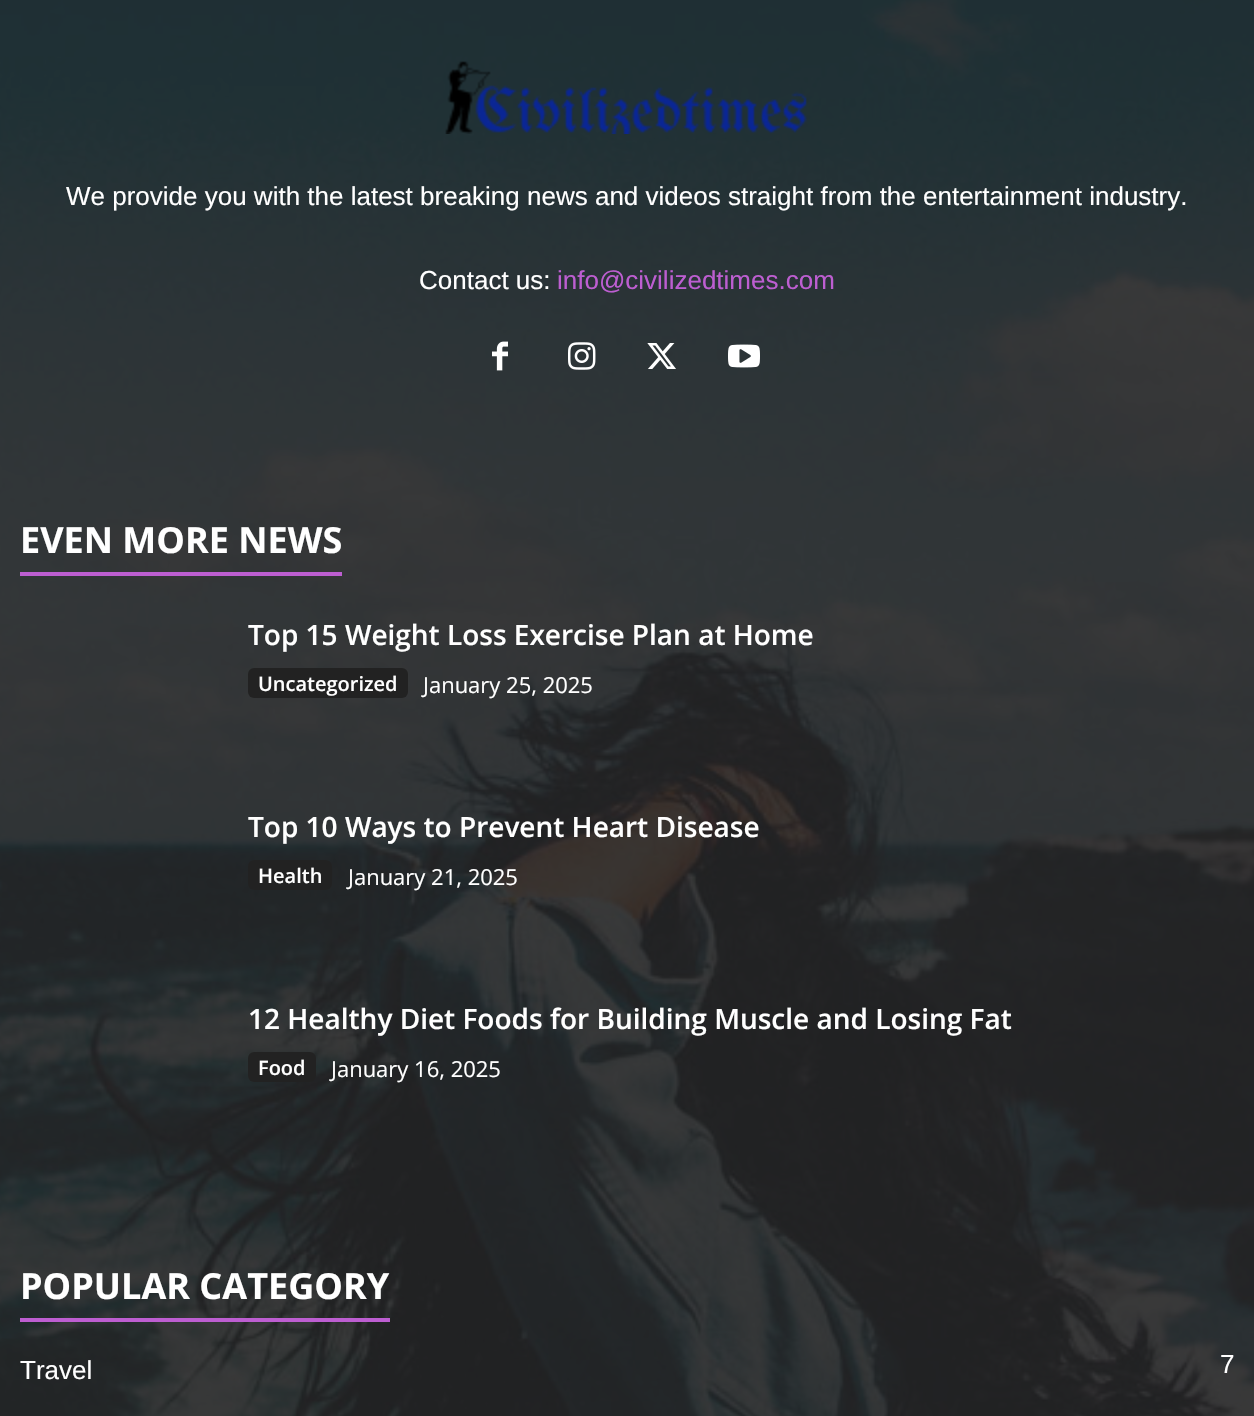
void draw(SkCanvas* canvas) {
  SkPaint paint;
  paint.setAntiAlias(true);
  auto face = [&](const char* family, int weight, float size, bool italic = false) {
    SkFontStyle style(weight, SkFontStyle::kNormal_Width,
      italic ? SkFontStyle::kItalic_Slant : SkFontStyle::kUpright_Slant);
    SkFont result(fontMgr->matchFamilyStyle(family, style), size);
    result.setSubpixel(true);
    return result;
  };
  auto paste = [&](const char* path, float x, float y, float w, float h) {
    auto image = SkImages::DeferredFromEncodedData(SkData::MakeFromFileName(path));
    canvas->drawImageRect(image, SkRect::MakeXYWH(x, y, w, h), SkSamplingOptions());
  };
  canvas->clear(0xff222222);
  paste("img/1.png", 0, 0, 1254, 1416);
  paste("img/2.png", 445, 61, 362, 73);
  paste("img/3.png", 492, 341, 16, 30);
  paste("img/4.png", 568, 342, 28, 28);
  paste("img/5.png", 647, 343, 29, 26);
  paste("img/6.png", 728, 344, 32, 24);
  paint.setColor(0xffbd5ed1);
  canvas->drawRect(SkRect::MakeXYWH(20, 572, 322, 4), paint);
  paint.setColor(0xff222222);
  canvas->drawRoundRect(SkRect::MakeXYWH(248, 668, 160, 30), 6, 6, paint);
  canvas->drawRoundRect(SkRect::MakeXYWH(248, 860, 84, 30), 6, 6, paint);
  canvas->drawRoundRect(SkRect::MakeXYWH(248, 1052, 68, 30), 6, 6, paint);
  paint.setColor(0xffbd5ed1);
  canvas->drawRect(SkRect::MakeXYWH(20, 1318, 370, 4), paint);
  auto f0 = face("Liberation Sans", 400, 26);
  paint.setColor(0xffffffff);
  canvas->drawString("We provide you with the latest breaking news and videos straight from the entertainment industry.", 66, 205, f0, paint);
  canvas->drawString("Contact us:", 419, 289, f0, paint);
  paint.setColor(0xffbd5ed1);
  canvas->drawString("info@civilizedtimes.com", 557, 289, f0, paint);
  auto f1 = face("Open Sans", 700, 36);
  paint.setColor(0xffffffff);
  canvas->drawString("EVEN MORE NEWS", 20, 553, f1, paint);
  auto f2 = face("Open Sans", 600, 28);
  canvas->drawString("Top 15 Weight Loss Exercise Plan at Home", 248, 645, f2, paint);
  auto f3 = face("Open Sans", 600, 20);
  canvas->drawString("Uncategorized", 258, 691, f3, paint);
  auto f4 = face("Open Sans", 400, 22);
  canvas->drawString("January 25, 2025", 423, 693, f4, paint);
  canvas->drawString("Top 10 Ways to Prevent Heart Disease", 248, 837, f2, paint);
  canvas->drawString("Health", 258, 883, f3, paint);
  canvas->drawString("January 21, 2025", 348, 885, f4, paint);
  canvas->drawString("12 Healthy Diet Foods for Building Muscle and Losing Fat", 248, 1029, f2, paint);
  canvas->drawString("Food", 258, 1075, f3, paint);
  canvas->drawString("January 16, 2025", 331, 1077, f4, paint);
  canvas->drawString("POPULAR CATEGORY", 20, 1299, f1, paint);
  canvas->drawString("Travel", 20, 1379, f0, paint);
  canvas->drawString("7", 1220, 1373, f0, paint);
}
